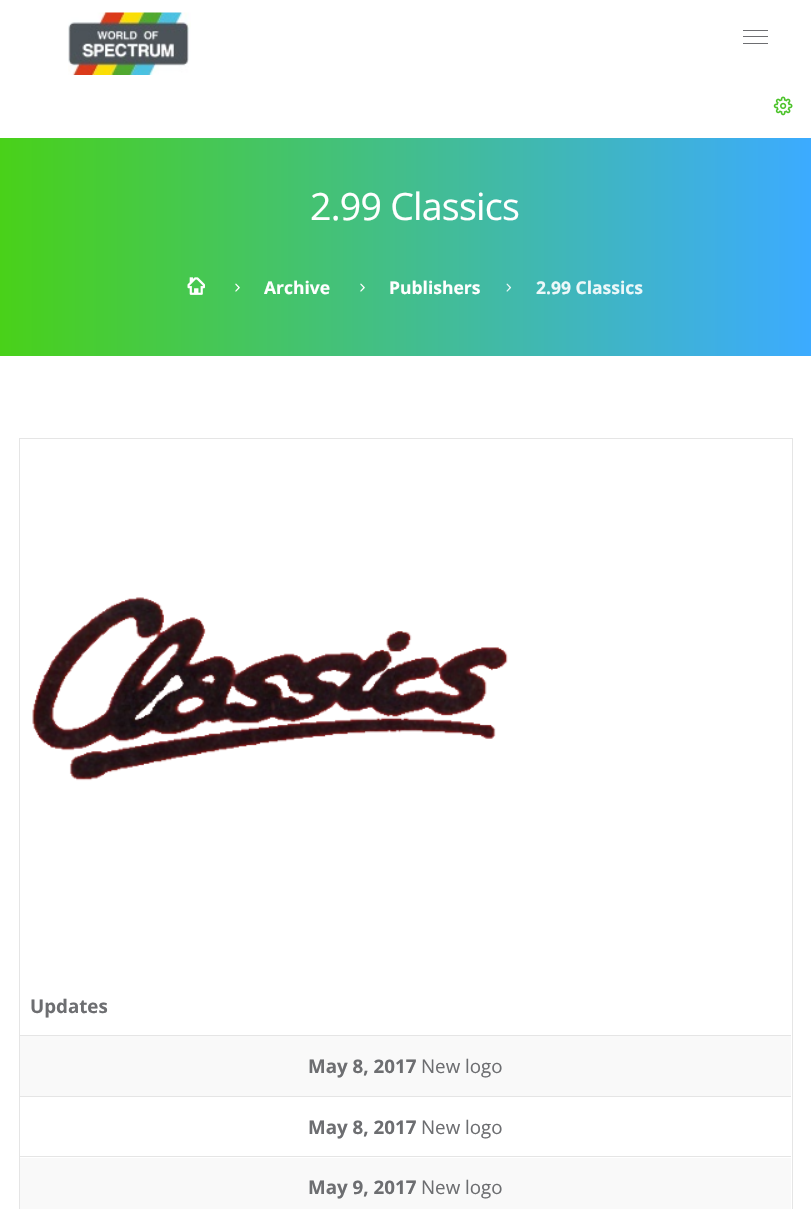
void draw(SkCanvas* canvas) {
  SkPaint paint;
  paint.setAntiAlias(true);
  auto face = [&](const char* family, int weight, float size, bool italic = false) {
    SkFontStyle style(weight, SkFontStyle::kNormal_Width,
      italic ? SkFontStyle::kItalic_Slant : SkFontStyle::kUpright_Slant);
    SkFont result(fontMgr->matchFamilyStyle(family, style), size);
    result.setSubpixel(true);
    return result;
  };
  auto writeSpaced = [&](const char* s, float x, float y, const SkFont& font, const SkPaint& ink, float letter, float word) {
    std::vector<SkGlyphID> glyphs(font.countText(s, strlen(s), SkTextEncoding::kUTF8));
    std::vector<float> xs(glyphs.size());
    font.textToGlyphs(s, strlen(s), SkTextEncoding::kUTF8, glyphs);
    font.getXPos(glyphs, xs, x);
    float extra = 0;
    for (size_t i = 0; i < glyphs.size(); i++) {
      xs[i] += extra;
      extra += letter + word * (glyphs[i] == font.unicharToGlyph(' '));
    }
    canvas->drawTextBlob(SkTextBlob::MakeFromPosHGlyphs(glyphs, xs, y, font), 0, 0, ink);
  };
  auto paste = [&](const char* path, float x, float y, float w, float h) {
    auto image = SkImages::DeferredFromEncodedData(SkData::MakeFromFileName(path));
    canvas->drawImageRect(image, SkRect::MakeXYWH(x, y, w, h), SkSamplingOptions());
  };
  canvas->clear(0xffffffff);
  paste("img/1.png", 68, 12, 123, 63);
  {
    const struct { float x, y, w, h; SkColor color; } items[] = {
      {743, 36, 25, 1, 0xff6d6e71},
      {743, 30, 25, 1, 0xff6d6e71},
      {743, 43, 25, 1, 0xff6d6e71},
    };
    for (auto [x, y, w, h, color] : items) {
      paint.setColor(color);
      canvas->drawRect(SkRect::MakeXYWH(x, y, w, h), paint);
    }
  }
  paste("img/2.png", 773, 96, 20, 20);
  {
    const SkColor colors[] = {0xff49d119, 0xff3cabff};
    const float stops[] = {0, 1};
    const SkPoint ends[] = {{0, 247}, {811, 247}};
    paint.setShader(SkGradientShader::MakeLinear(ends, colors, stops, 2, SkTileMode::kClamp));
    paint.setAlpha(255);
  }
  canvas->drawRect(SkRect::MakeXYWH(0, 138, 811, 218), paint);
  paste("img/3.png", 187, 277, 18, 18);
  paste("img/4.png", 235, 283, 5, 9);
  paste("img/5.png", 360, 283, 5, 9);
  paste("img/6.png", 506, 283, 6, 9);
  paint.setStroke(true);
  paint.setStrokeWidth(1);
  paint.setShader(nullptr);
  paint.setColor(0xffe5e5e5);
  canvas->drawRect(SkRect::MakeXYWH(19.5f, 438.5f, 773, 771), paint);
  paste("img/7.png", 32, 597, 476, 184);
  paint.setStroke(false);
  {
    const struct { float x, y, w, h; SkColor color; } items[] = {
      {20, 1036, 771, 60, 0xfff9f9f9},
      {20, 1035, 771, 1, 0xffe5e5e5},
      {20, 1096, 771, 1, 0xffe5e5e5},
      {20, 1158, 771, 51, 0xfff9f9f9},
      {20, 1156, 771, 1, 0xffe5e5e5},
    };
    for (auto [x, y, w, h, color] : items) {
      paint.setColor(color);
      canvas->drawRect(SkRect::MakeXYWH(x, y, w, h), paint);
    }
  }
  auto f0 = face("Open Sans", 400, 37.5f);
  paint.setColor(0xffffffff);
  writeSpaced("2.99 Classics", 310, 220, f0, paint, -0.75f, 0);
  auto f1 = face("Open Sans", 700, 17.5f);
  canvas->drawString("Archive", 264, 294, f1, paint);
  canvas->drawString("Publishers", 389, 294, f1, paint);
  paint.setColor(0xffecf8f9);
  canvas->drawString("2.99 Classics", 536, 294, f1, paint);
  auto f2 = face("Open Sans", 700, 18.75f);
  paint.setColor(0xff6d6e71);
  canvas->drawString("Updates", 30, 1013, f2, paint);
  canvas->drawString("May 8, 2017", 308, 1073, f2, paint);
  auto f3 = face("Open Sans", 400, 18.75f);
  canvas->drawString("New logo", 421, 1073, f3, paint);
  canvas->drawString("May 8, 2017", 308, 1134, f2, paint);
  canvas->drawString("New logo", 421, 1134, f3, paint);
  canvas->drawString("May 9, 2017", 308, 1194, f2, paint);
  canvas->drawString("New logo", 421, 1194, f3, paint);
}
